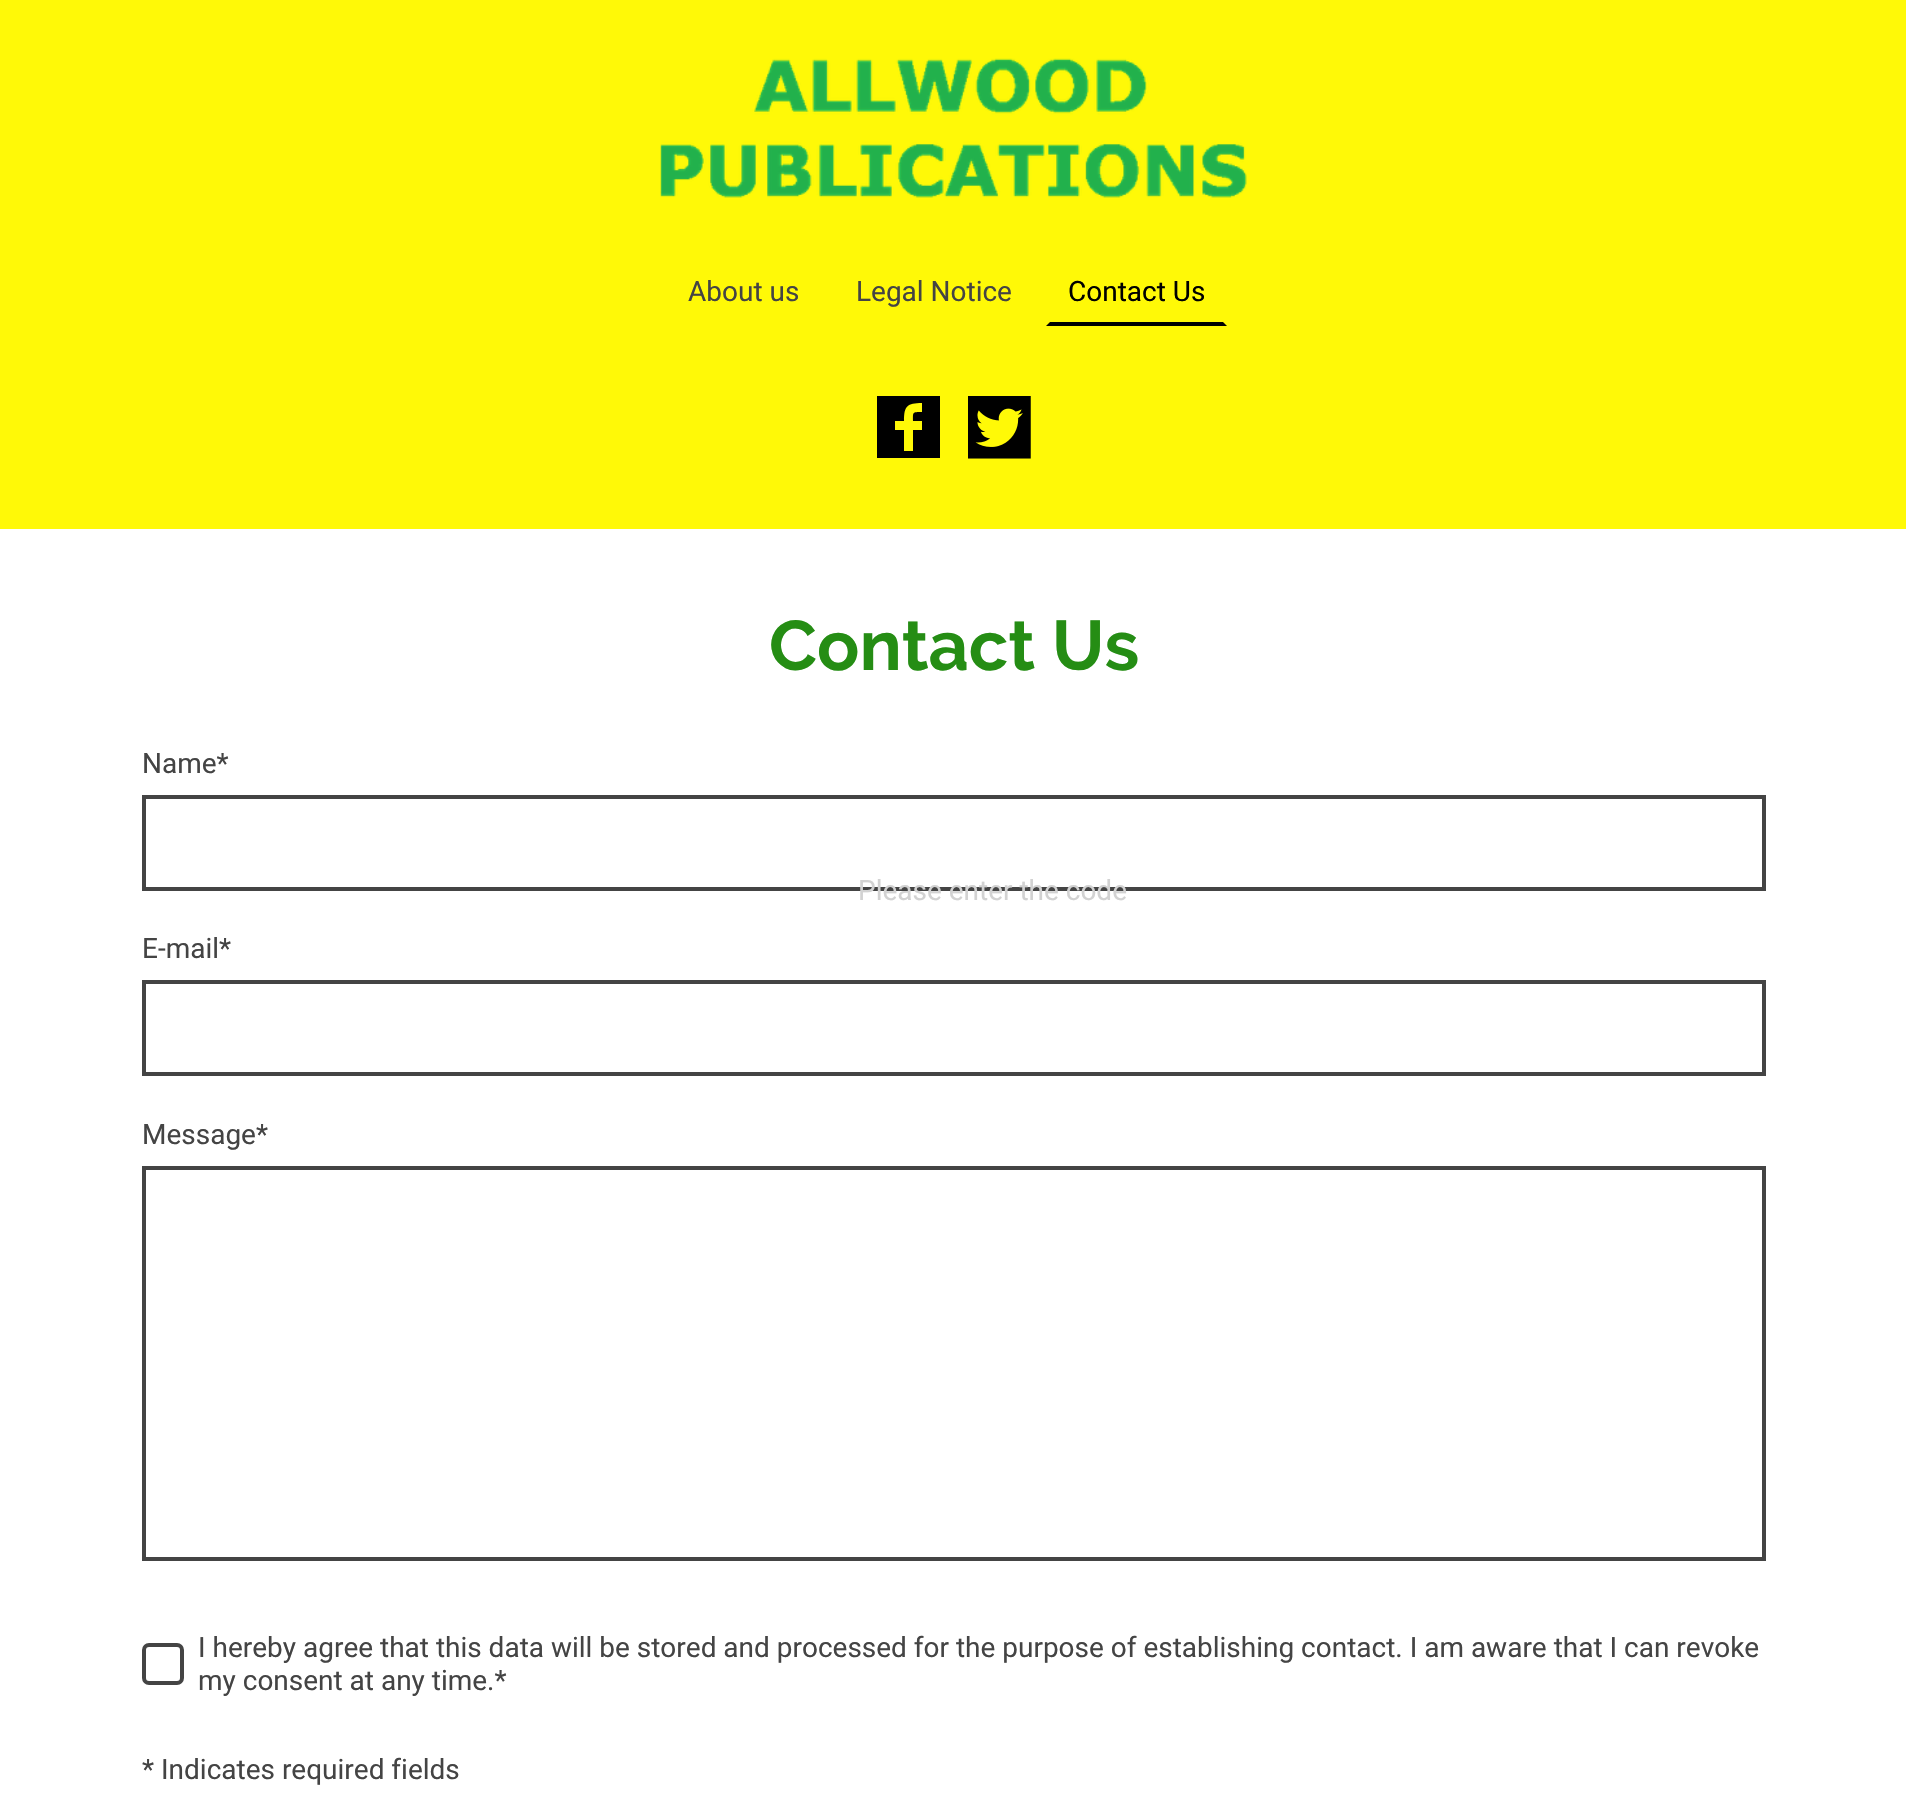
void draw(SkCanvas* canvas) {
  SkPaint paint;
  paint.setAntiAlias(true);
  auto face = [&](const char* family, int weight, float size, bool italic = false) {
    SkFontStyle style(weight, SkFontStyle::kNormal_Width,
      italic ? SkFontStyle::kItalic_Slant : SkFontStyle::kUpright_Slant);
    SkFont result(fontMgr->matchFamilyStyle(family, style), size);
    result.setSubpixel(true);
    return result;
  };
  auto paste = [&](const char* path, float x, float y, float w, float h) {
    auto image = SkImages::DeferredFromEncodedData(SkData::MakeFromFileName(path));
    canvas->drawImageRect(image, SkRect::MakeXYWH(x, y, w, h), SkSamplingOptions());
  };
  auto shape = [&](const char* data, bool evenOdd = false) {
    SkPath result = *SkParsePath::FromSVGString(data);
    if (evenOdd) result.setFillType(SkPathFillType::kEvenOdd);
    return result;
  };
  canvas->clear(0xffffffff);
  paint.setColor(0xfffff907);
  canvas->drawRect(SkRect::MakeXYWH(0, 0, 1906, 529), paint);
  paste("img/1.png", 660, 58, 587, 140);
  paint.setColor(0xff000000);
  canvas->drawPath(shape("M1227 326H1046L1050 322H1223Z"), paint);
  canvas->drawPath(shape("M877 396V458H940V396ZM922 412C912 412 913 412 913 421H922V430H913V451H904V430H895V421H904C904 406 907 403 922 403Z"), paint);
  paste("img/2.png", 968, 396, 63, 63);
  paint.setStroke(true);
  paint.setStrokeWidth(4);
  paint.setColor(0xff444444);
  canvas->drawRect(SkRect::MakeXYWH(144, 797, 1620, 92), paint);
  canvas->drawRect(SkRect::MakeXYWH(144, 982, 1620, 92), paint);
  canvas->drawRect(SkRect::MakeXYWH(144, 1168, 1620, 391), paint);
  canvas->drawRoundRect(SkRect::MakeXYWH(144, 1645, 38, 38), 5, 5, paint);
  auto f0 = face("Roboto", 400, 28);
  paint.setStroke(false);
  canvas->drawString("About us", 688, 301, f0, paint);
  canvas->drawString("Legal Notice", 856, 301, f0, paint);
  paint.setColor(0xff000000);
  canvas->drawString("Contact Us", 1068, 301, f0, paint);
  auto f1 = face("Raleway", 700, 70);
  paint.setColor(0xff258d14);
  canvas->drawString("Contact Us", 769, 670, f1, paint);
  paint.setColor(0xff444444);
  {
    const struct { const char* s; float x, y; } items[] = {
      {"Name*", 142, 773},
      {"E-mail*", 142, 958},
      {"Message*", 142, 1144},
      {"I hereby agree that this data will be stored and processed for the purpose of establishing contact. I am aware that I can revoke", 198, 1657},
      {"my consent at any time.*", 198, 1690},
      {"* Indicates required fields", 142, 1779},
    };
    for (auto [s, x, y] : items) {
      canvas->drawString(s, x, y, f0, paint);
    }
  }
  paint.setColor(0xffd2d2d2);
  canvas->drawString("Please enter the code", 858, 900, f0, paint);
}
